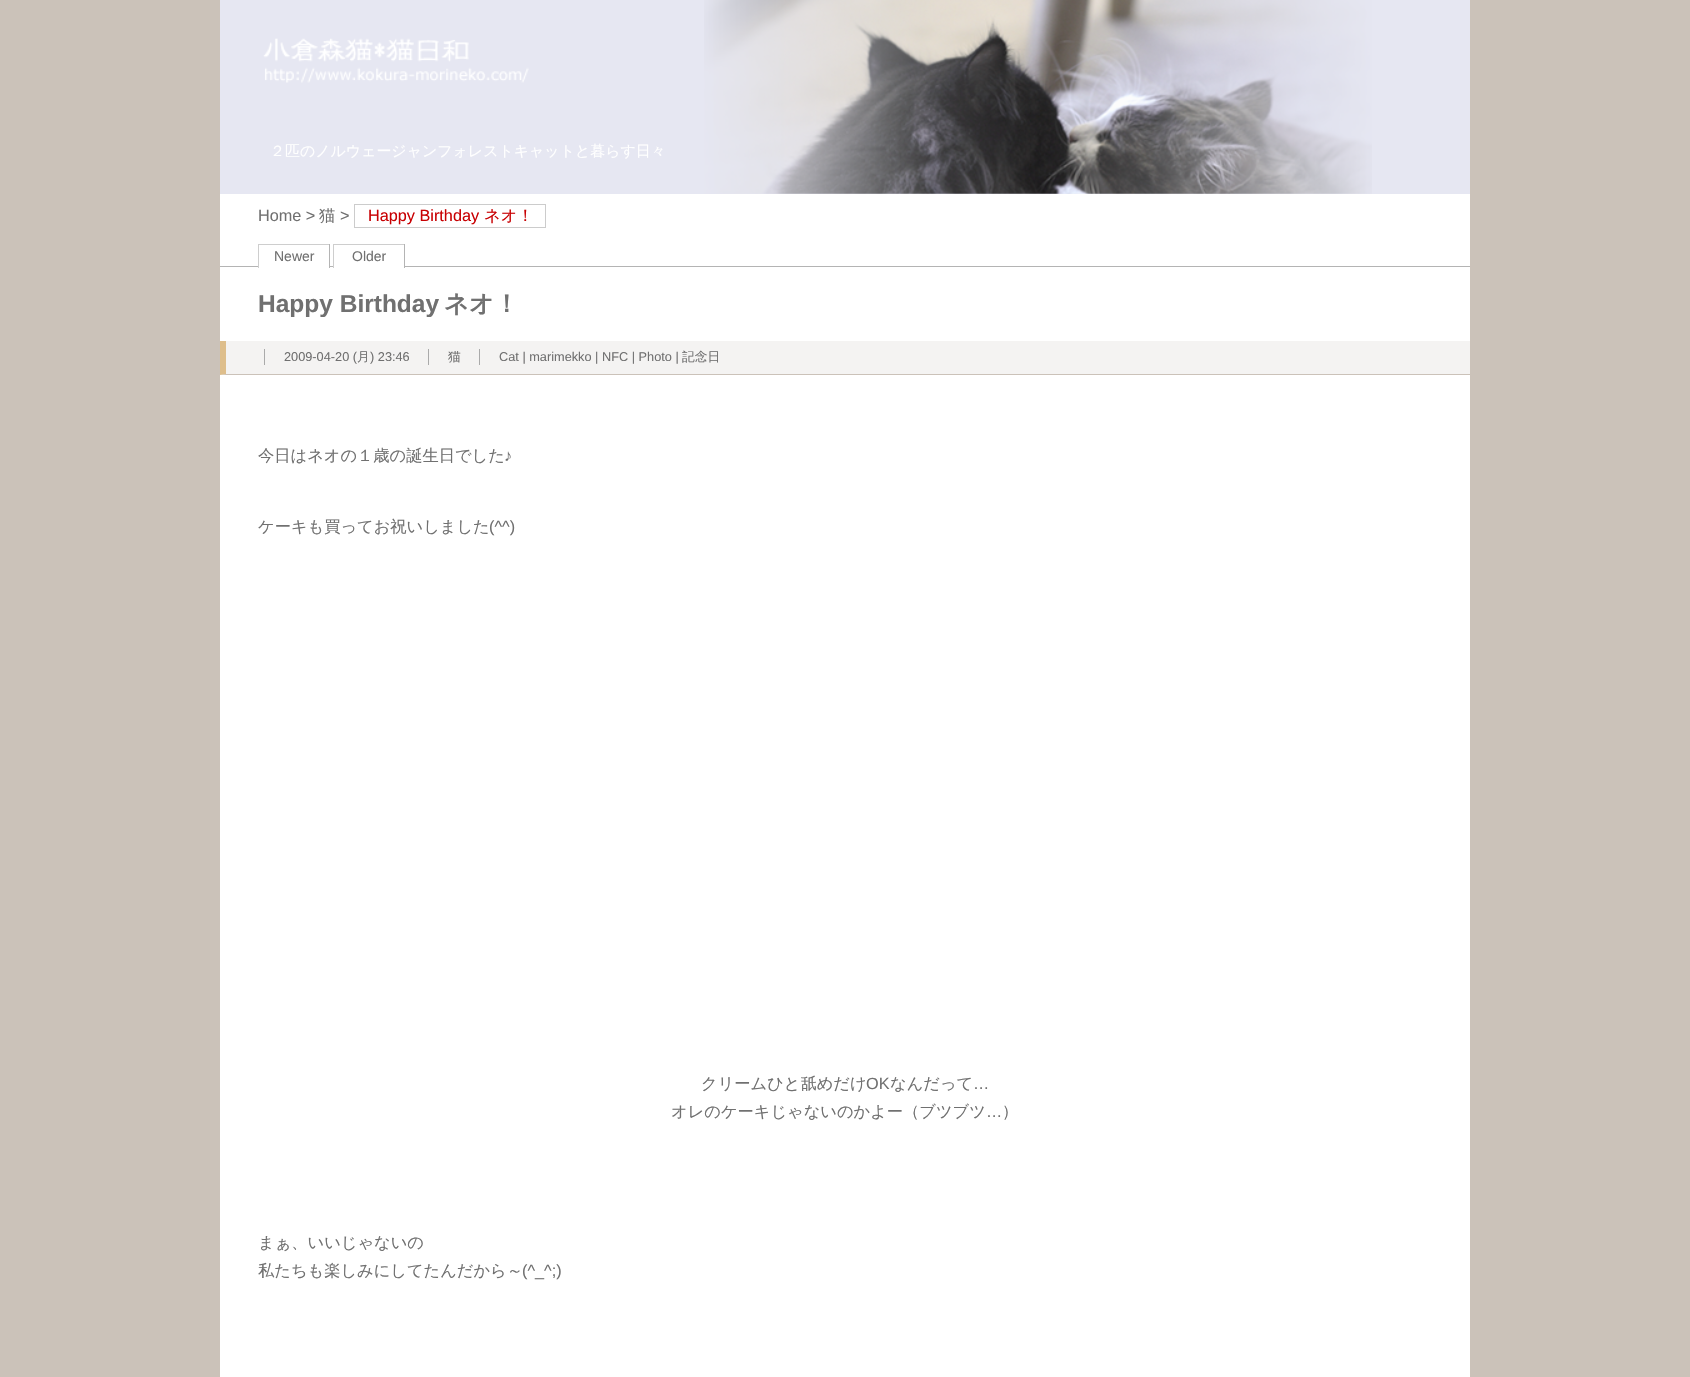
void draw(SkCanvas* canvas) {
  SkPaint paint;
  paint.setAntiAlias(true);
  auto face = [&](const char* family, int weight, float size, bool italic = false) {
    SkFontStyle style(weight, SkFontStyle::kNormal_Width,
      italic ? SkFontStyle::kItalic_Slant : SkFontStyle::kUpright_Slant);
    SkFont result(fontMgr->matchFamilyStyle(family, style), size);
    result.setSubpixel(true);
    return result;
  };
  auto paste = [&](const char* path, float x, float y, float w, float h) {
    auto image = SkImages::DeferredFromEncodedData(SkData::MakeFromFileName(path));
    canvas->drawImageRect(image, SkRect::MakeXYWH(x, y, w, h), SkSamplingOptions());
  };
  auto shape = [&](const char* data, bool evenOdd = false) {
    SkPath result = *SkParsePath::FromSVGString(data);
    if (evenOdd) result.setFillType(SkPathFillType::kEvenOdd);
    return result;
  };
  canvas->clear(0xffcbc2b9);
  paint.setColor(0xffe6e7f2);
  canvas->drawRect(SkRect::MakeXYWH(220, 0, 1250, 194), paint);
  paste("img/1.png", 704, 0, 668, 194);
  paste("img/2.png", 263, 38, 266, 45);
  paint.setColor(0xffffffff);
  canvas->drawRect(SkRect::MakeXYWH(220, 194, 1250, 1183), paint);
  paint.setStroke(true);
  paint.setStrokeWidth(1);
  paint.setColor(0xffcccccc);
  canvas->drawRect(SkRect::MakeXYWH(354.5f, 204.5f, 191, 23), paint);
  paint.setStroke(false);
  {
    const struct { float x, y, w, h; SkColor color; } items[] = {
      {220, 266, 1250, 1, 0xffb4b4b4},
      {259, 266, 70, 1, 0xffffffff},
      {258, 244, 72, 1, 0xffcecece},
      {329, 244, 1, 24, 0xffb4b4b4},
      {258, 244, 1, 24, 0xffcecece},
      {334, 266, 70, 1, 0xffffffff},
      {333, 244, 72, 1, 0xffcecece},
      {404, 244, 1, 24, 0xffb4b4b4},
      {333, 244, 1, 24, 0xffcecece},
      {220, 341, 1250, 34, 0xfff4f3f2},
    };
    for (auto [x, y, w, h, color] : items) {
      paint.setColor(color);
      canvas->drawRect(SkRect::MakeXYWH(x, y, w, h), paint);
    }
  }
  paint.setColor(0xffcbc2b9);
  canvas->drawPath(shape("M1470 375H220L226 374H1470Z"), paint);
  paint.setColor(0xffdebe8b);
  canvas->drawPath(shape("M220 375V341H226V374Z"), paint);
  {
    const struct { float x, y, w, h; SkColor color; } items[] = {
      {264, 349, 1, 16, 0xffaaaaaa},
      {428, 349, 1, 16, 0xffaaaaaa},
      {479, 349, 1, 16, 0xffaaaaaa},
    };
    for (auto [x, y, w, h, color] : items) {
      paint.setColor(color);
      canvas->drawRect(SkRect::MakeXYWH(x, y, w, h), paint);
    }
  }
  auto f0 = face("WenQuanYi Zen Hei", 500, 14.95f);
  paint.setColor(0xffffffff);
  canvas->drawString("２匹のノルウェージャンフォレストキャットと暮らす日々", 270, 156, f0, paint);
  auto f1 = face("Liberation Sans", 400, 16.25f);
  paint.setColor(0xff707070);
  canvas->drawString("Home >", 258, 221, f1, paint);
  auto f2 = face("WenQuanYi Zen Hei", 500, 16.25f);
  canvas->drawString("猫", 319, 221, f2, paint);
  canvas->drawString(">", 340, 221, f1, paint);
  paint.setColor(0xffc80002);
  canvas->drawString("Happy Birthday", 368, 221, f1, paint);
  canvas->drawString("ネオ！", 484, 221, f2, paint);
  auto f3 = face("Liberation Sans", 400, 14);
  paint.setColor(0xff707070);
  canvas->drawString("Newer", 274, 261, f3, paint);
  canvas->drawString("Older", 352, 261, f3, paint);
  auto f4 = face("Liberation Sans", 700, 24.5f);
  canvas->drawString("Happy Birthday", 258, 312, f4, paint);
  auto f5 = face("WenQuanYi Zen Hei", 700, 24.5f);
  canvas->drawString("ネオ！", 444, 312, f5, paint);
  auto f6 = face("Liberation Sans", 400, 12.75f);
  canvas->drawString("2009-04-20 (", 284, 361, f6, paint);
  auto f7 = face("WenQuanYi Zen Hei", 500, 12.75f);
  canvas->drawString("月", 357, 361, f7, paint);
  canvas->drawString(") 23:46", 370, 361, f6, paint);
  canvas->drawString("猫", 448, 361, f7, paint);
  canvas->drawString("Cat | marimekko | NFC | Photo |", 499, 361, f6, paint);
  canvas->drawString("記念日", 682, 361, f7, paint);
  canvas->drawString("今日はネオの１歳の誕生日でした", 258, 461, f2, paint);
  canvas->drawString("♪", 504, 461, f1, paint);
  canvas->drawString("ケーキも買ってお祝いしました", 258, 532, f2, paint);
  canvas->drawString("(^^)", 489, 532, f1, paint);
  canvas->drawString("クリームひと舐めだけ", 701, 1089, f2, paint);
  canvas->drawString("OK", 866, 1089, f1, paint);
  canvas->drawString("なんだって", 890, 1089, f2, paint);
  canvas->drawString("…", 973, 1089, f1, paint);
  canvas->drawString("オレのケーキじゃないのかよー（ブツブツ", 671, 1117, f2, paint);
  canvas->drawString("…", 986, 1117, f1, paint);
  {
    const struct { const char* s; float x, y; } items[] = {
      {"）", 1002, 1117},
      {"まぁ、いいじゃないの", 258, 1248},
      {"私たちも楽しみにしてたんだから～", 258, 1276},
    };
    for (auto [s, x, y] : items) {
      canvas->drawString(s, x, y, f2, paint);
    }
  }
  canvas->drawString("(^_^;)", 522, 1276, f1, paint);
}
